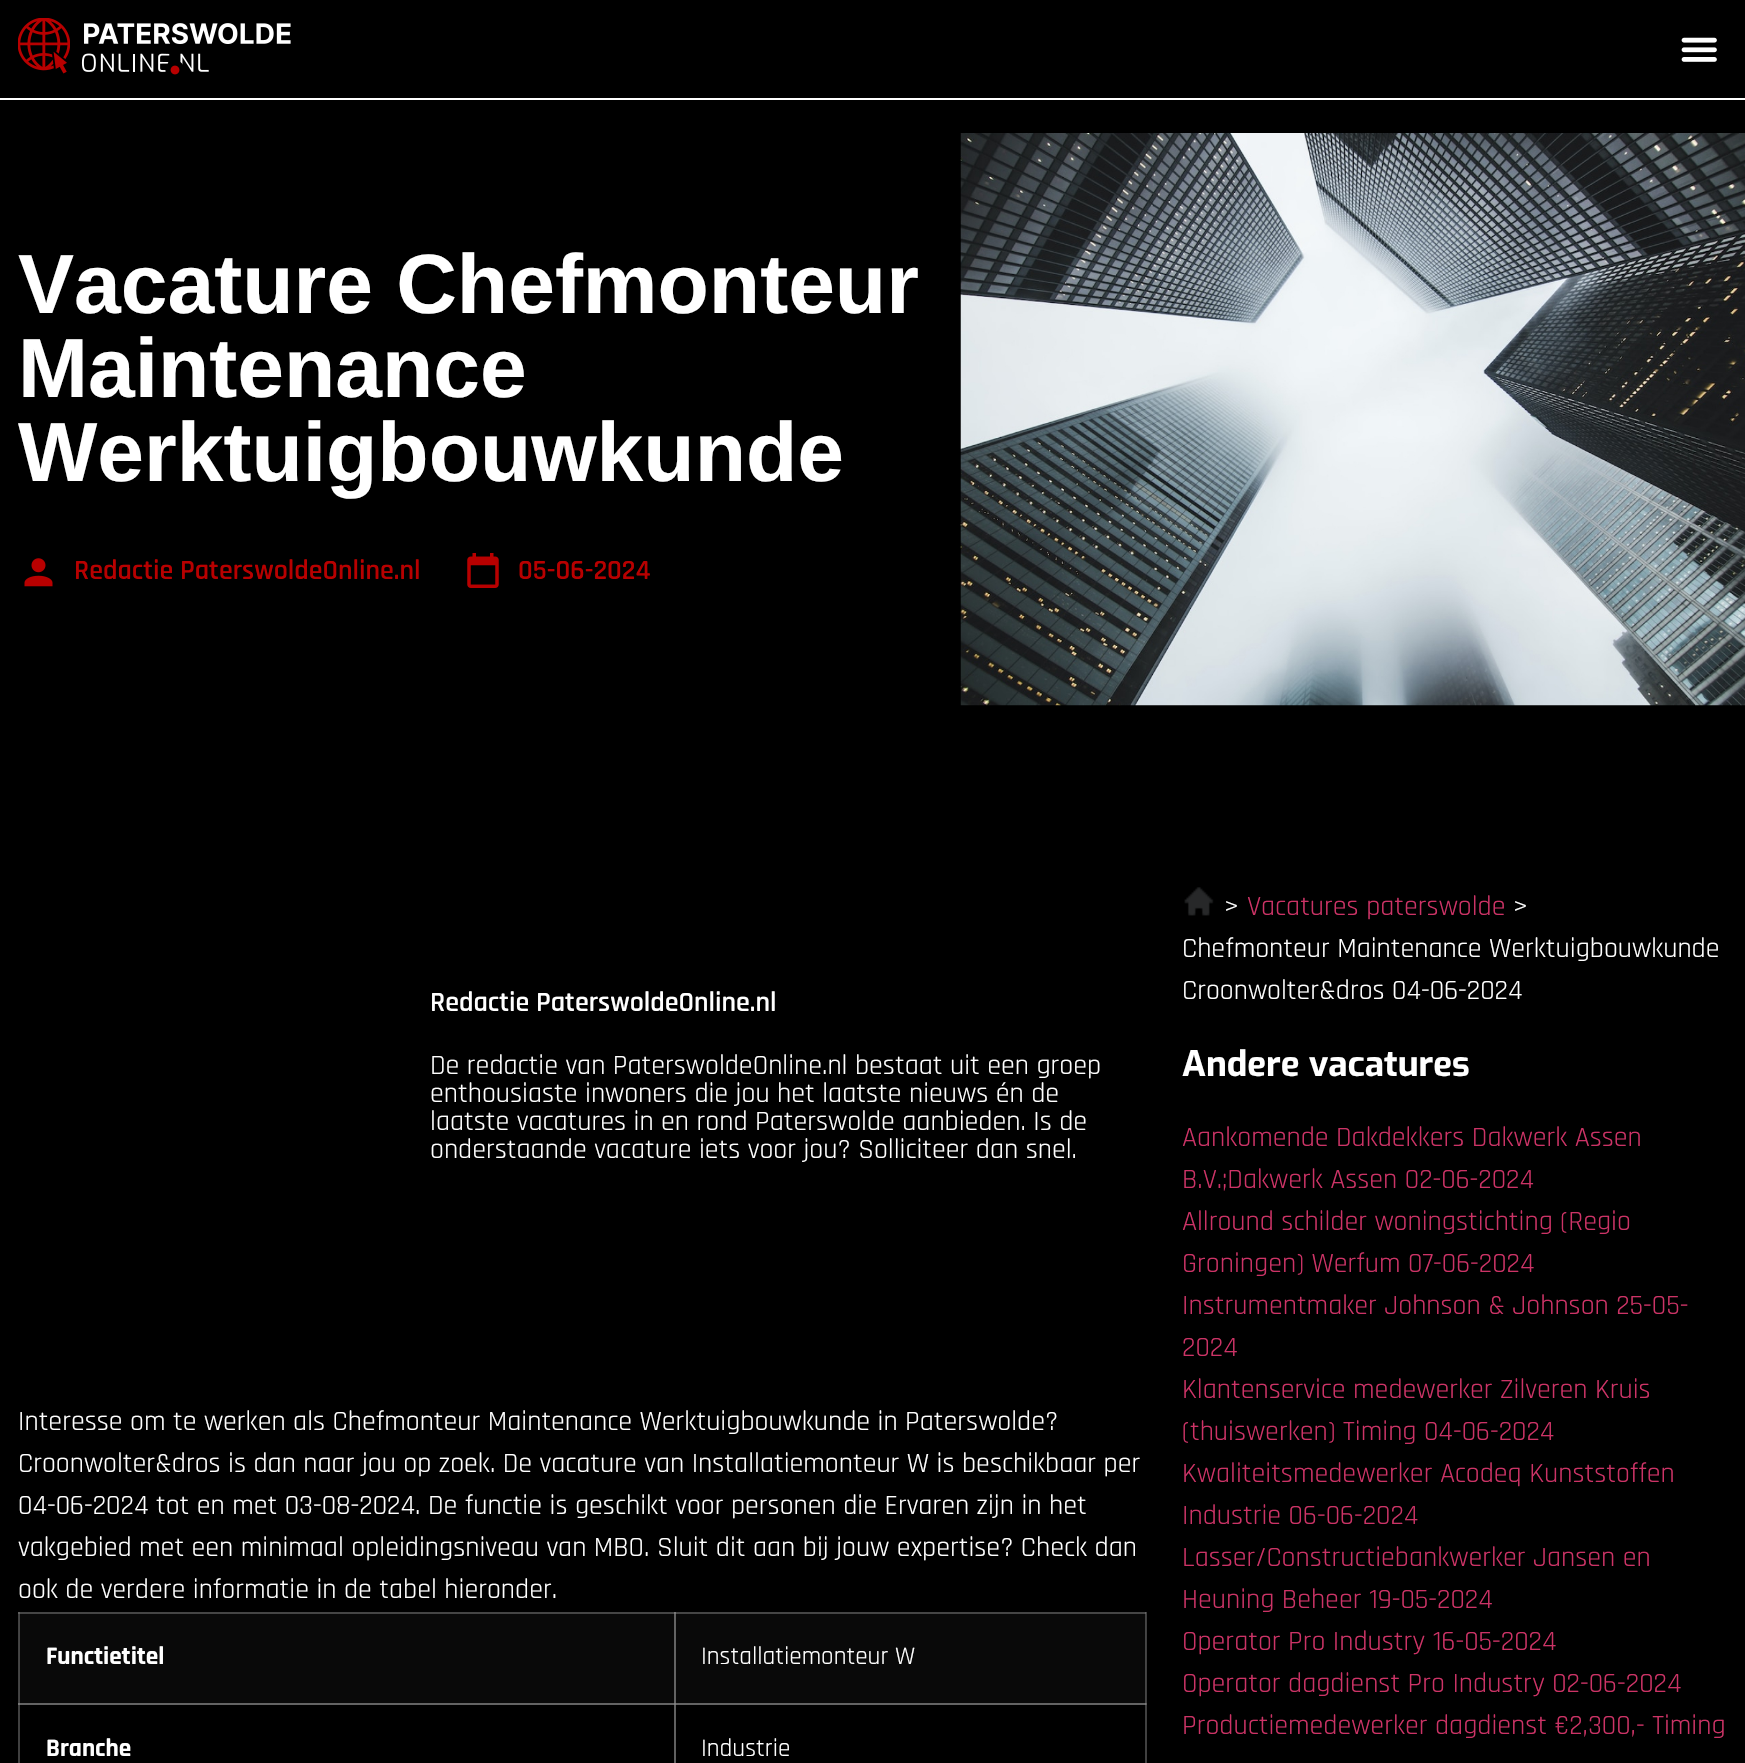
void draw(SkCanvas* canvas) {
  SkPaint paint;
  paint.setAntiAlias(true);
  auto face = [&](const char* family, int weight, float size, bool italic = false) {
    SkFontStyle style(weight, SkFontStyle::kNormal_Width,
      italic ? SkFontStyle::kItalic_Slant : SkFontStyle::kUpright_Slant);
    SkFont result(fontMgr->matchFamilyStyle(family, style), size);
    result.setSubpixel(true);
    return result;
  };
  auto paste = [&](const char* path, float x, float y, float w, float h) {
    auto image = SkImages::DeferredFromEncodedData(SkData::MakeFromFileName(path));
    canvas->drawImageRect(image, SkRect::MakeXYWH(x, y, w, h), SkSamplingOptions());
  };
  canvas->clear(0xff000000);
  {
    const struct { float x, y, w, h; SkColor color; } items[] = {
      {18, 1612, 1, 93, 0xff404040},
      {18, 1612, 2, 2, 0xff606060},
      {1146, 1612, 1, 93, 0xff404040},
      {18, 1703, 2, 60, 0xff404040},
      {18, 1703, 2, 2, 0xff787878},
      {674, 1703, 2, 60, 0xff606060},
      {1145, 1703, 2, 60, 0xff404040},
      {1145, 1703, 2, 2, 0xff606060},
      {0, 98, 1745, 2, 0xffffffff},
    };
    for (auto [x, y, w, h, color] : items) {
      paint.setColor(color);
      canvas->drawRect(SkRect::MakeXYWH(x, y, w, h), paint);
    }
  }
  paste("img/1.png", 18, 18, 273, 57);
  paste("img/2.png", 1681, 37, 36, 25);
  paste("img/3.png", 24, 558, 29, 29);
  paste("img/4.png", 467, 553, 32, 35);
  paste("img/5.png", 960, 133, 785, 573);
  {
    const struct { float x, y, w, h; SkColor color; } items[] = {
      {20, 1614, 654, 89, 0xff090909},
      {19, 1612, 1, 93, 0xff454545},
      {19, 1612, 655, 2, 0xff454545},
      {19, 1612, 1, 2, 0xff636363},
      {19, 1703, 655, 2, 0xff636363},
      {19, 1703, 1, 2, 0xff797979},
      {676, 1614, 469, 89, 0xff090909},
      {674, 1612, 2, 93, 0xff636363},
      {1145, 1612, 1, 93, 0xff454545},
      {674, 1612, 472, 2, 0xff454545},
      {674, 1612, 2, 2, 0xff797979},
      {1145, 1612, 1, 2, 0xff636363},
      {674, 1703, 472, 2, 0xff636363},
      {674, 1703, 2, 2, 0xff808080},
      {1145, 1703, 1, 2, 0xff797979},
    };
    for (auto [x, y, w, h, color] : items) {
      paint.setColor(color);
      canvas->drawRect(SkRect::MakeXYWH(x, y, w, h), paint);
    }
  }
  paste("img/6.png", 1184, 887, 30, 29);
  auto f0 = face("Liberation Sans", 700, 84);
  paint.setColor(0xffffffff);
  {
    const struct { const char* s; float x, y; } items[] = {
      {"Vacature Chefmonteur", 18, 313},
      {"Maintenance", 18, 397},
      {"Werktuigbouwkunde", 18, 481},
    };
    for (auto [s, x, y] : items) {
      canvas->drawString(s, x, y, f0, paint);
    }
  }
  auto f1 = face("Rajdhani", 600, 28);
  paint.setColor(0xffb80000);
  canvas->drawString("Redactie PaterswoldeOnline.nl", 74, 579, f1, paint);
  canvas->drawString("05-06-2024", 518, 579, f1, paint);
  paint.setColor(0xffffffff);
  canvas->drawString("Redactie PaterswoldeOnline.nl", 430, 1011, f1, paint);
  auto f2 = face("Rajdhani", 400, 28);
  {
    const struct { const char* s; float x, y; } items[] = {
      {"De redactie van PaterswoldeOnline.nl bestaat uit een groep", 430, 1074},
      {"enthousiaste inwoners die jou het laatste nieuws én de", 430, 1102},
      {"laatste vacatures in en rond Paterswolde aanbieden. Is de", 430, 1130},
      {"onderstaande vacature iets voor jou? Solliciteer dan snel.", 430, 1158},
      {"Interesse om te werken als Chefmonteur Maintenance Werktuigbouwkunde in Paterswolde?", 18, 1430},
      {"Croonwolter&dros is dan naar jou op zoek. De vacature van Installatiemonteur W is beschikbaar per", 18, 1472},
      {"04-06-2024 tot en met 03-08-2024. De functie is geschikt voor personen die Ervaren zijn in het", 18, 1514},
      {"vakgebied met een minimaal opleidingsniveau van MBO. Sluit dit aan bij jouw expertise? Check dan", 18, 1556},
      {"ook de verdere informatie in de tabel hieronder.", 18, 1598},
    };
    for (auto [s, x, y] : items) {
      canvas->drawString(s, x, y, f2, paint);
    }
  }
  auto f3 = face("Rajdhani", 700, 25.25f);
  canvas->drawString("Functietitel", 46, 1664, f3, paint);
  auto f4 = face("Rajdhani", 400, 25.25f);
  canvas->drawString("Installatiemonteur W", 701, 1664, f4, paint);
  canvas->drawString("Branche", 46, 1756, f3, paint);
  canvas->drawString("Industrie", 701, 1756, f4, paint);
  canvas->drawString(">", 1224, 915, f2, paint);
  paint.setColor(0xffcc3366);
  canvas->drawString("Vacatures paterswolde", 1247, 915, f2, paint);
  paint.setColor(0xffffffff);
  {
    const struct { const char* s; float x, y; } items[] = {
      {">", 1513, 915},
      {"Chefmonteur Maintenance Werktuigbouwkunde", 1182, 957},
      {"Croonwolter&dros 04-06-2024", 1182, 999},
    };
    for (auto [s, x, y] : items) {
      canvas->drawString(s, x, y, f2, paint);
    }
  }
  auto f5 = face("Exo", 700, 35);
  canvas->drawString("Andere vacatures", 1182, 1076, f5, paint);
  paint.setColor(0xffcc3366);
  {
    const struct { const char* s; float x, y; } items[] = {
      {"Aankomende Dakdekkers Dakwerk Assen", 1182, 1146},
      {"B.V.;Dakwerk Assen 02-06-2024", 1182, 1188},
      {"Allround schilder woningstichting (Regio", 1182, 1230},
      {"Groningen) Werfum 07-06-2024", 1182, 1272},
      {"Instrumentmaker Johnson & Johnson 25-05-", 1182, 1314},
      {"2024", 1182, 1356},
      {"Klantenservice medewerker Zilveren Kruis", 1182, 1398},
      {"(thuiswerken) Timing 04-06-2024", 1182, 1440},
      {"Kwaliteitsmedewerker Acodeq Kunststoffen", 1182, 1482},
      {"Industrie 06-06-2024", 1182, 1524},
      {"Lasser/Constructiebankwerker Jansen en", 1182, 1566},
      {"Heuning Beheer 19-05-2024", 1182, 1608},
      {"Operator Pro Industry 16-05-2024", 1182, 1650},
      {"Operator dagdienst Pro Industry 02-06-2024", 1182, 1692},
      {"Productiemedewerker dagdienst €2,300,- Timing", 1182, 1734},
    };
    for (auto [s, x, y] : items) {
      canvas->drawString(s, x, y, f2, paint);
    }
  }
}
